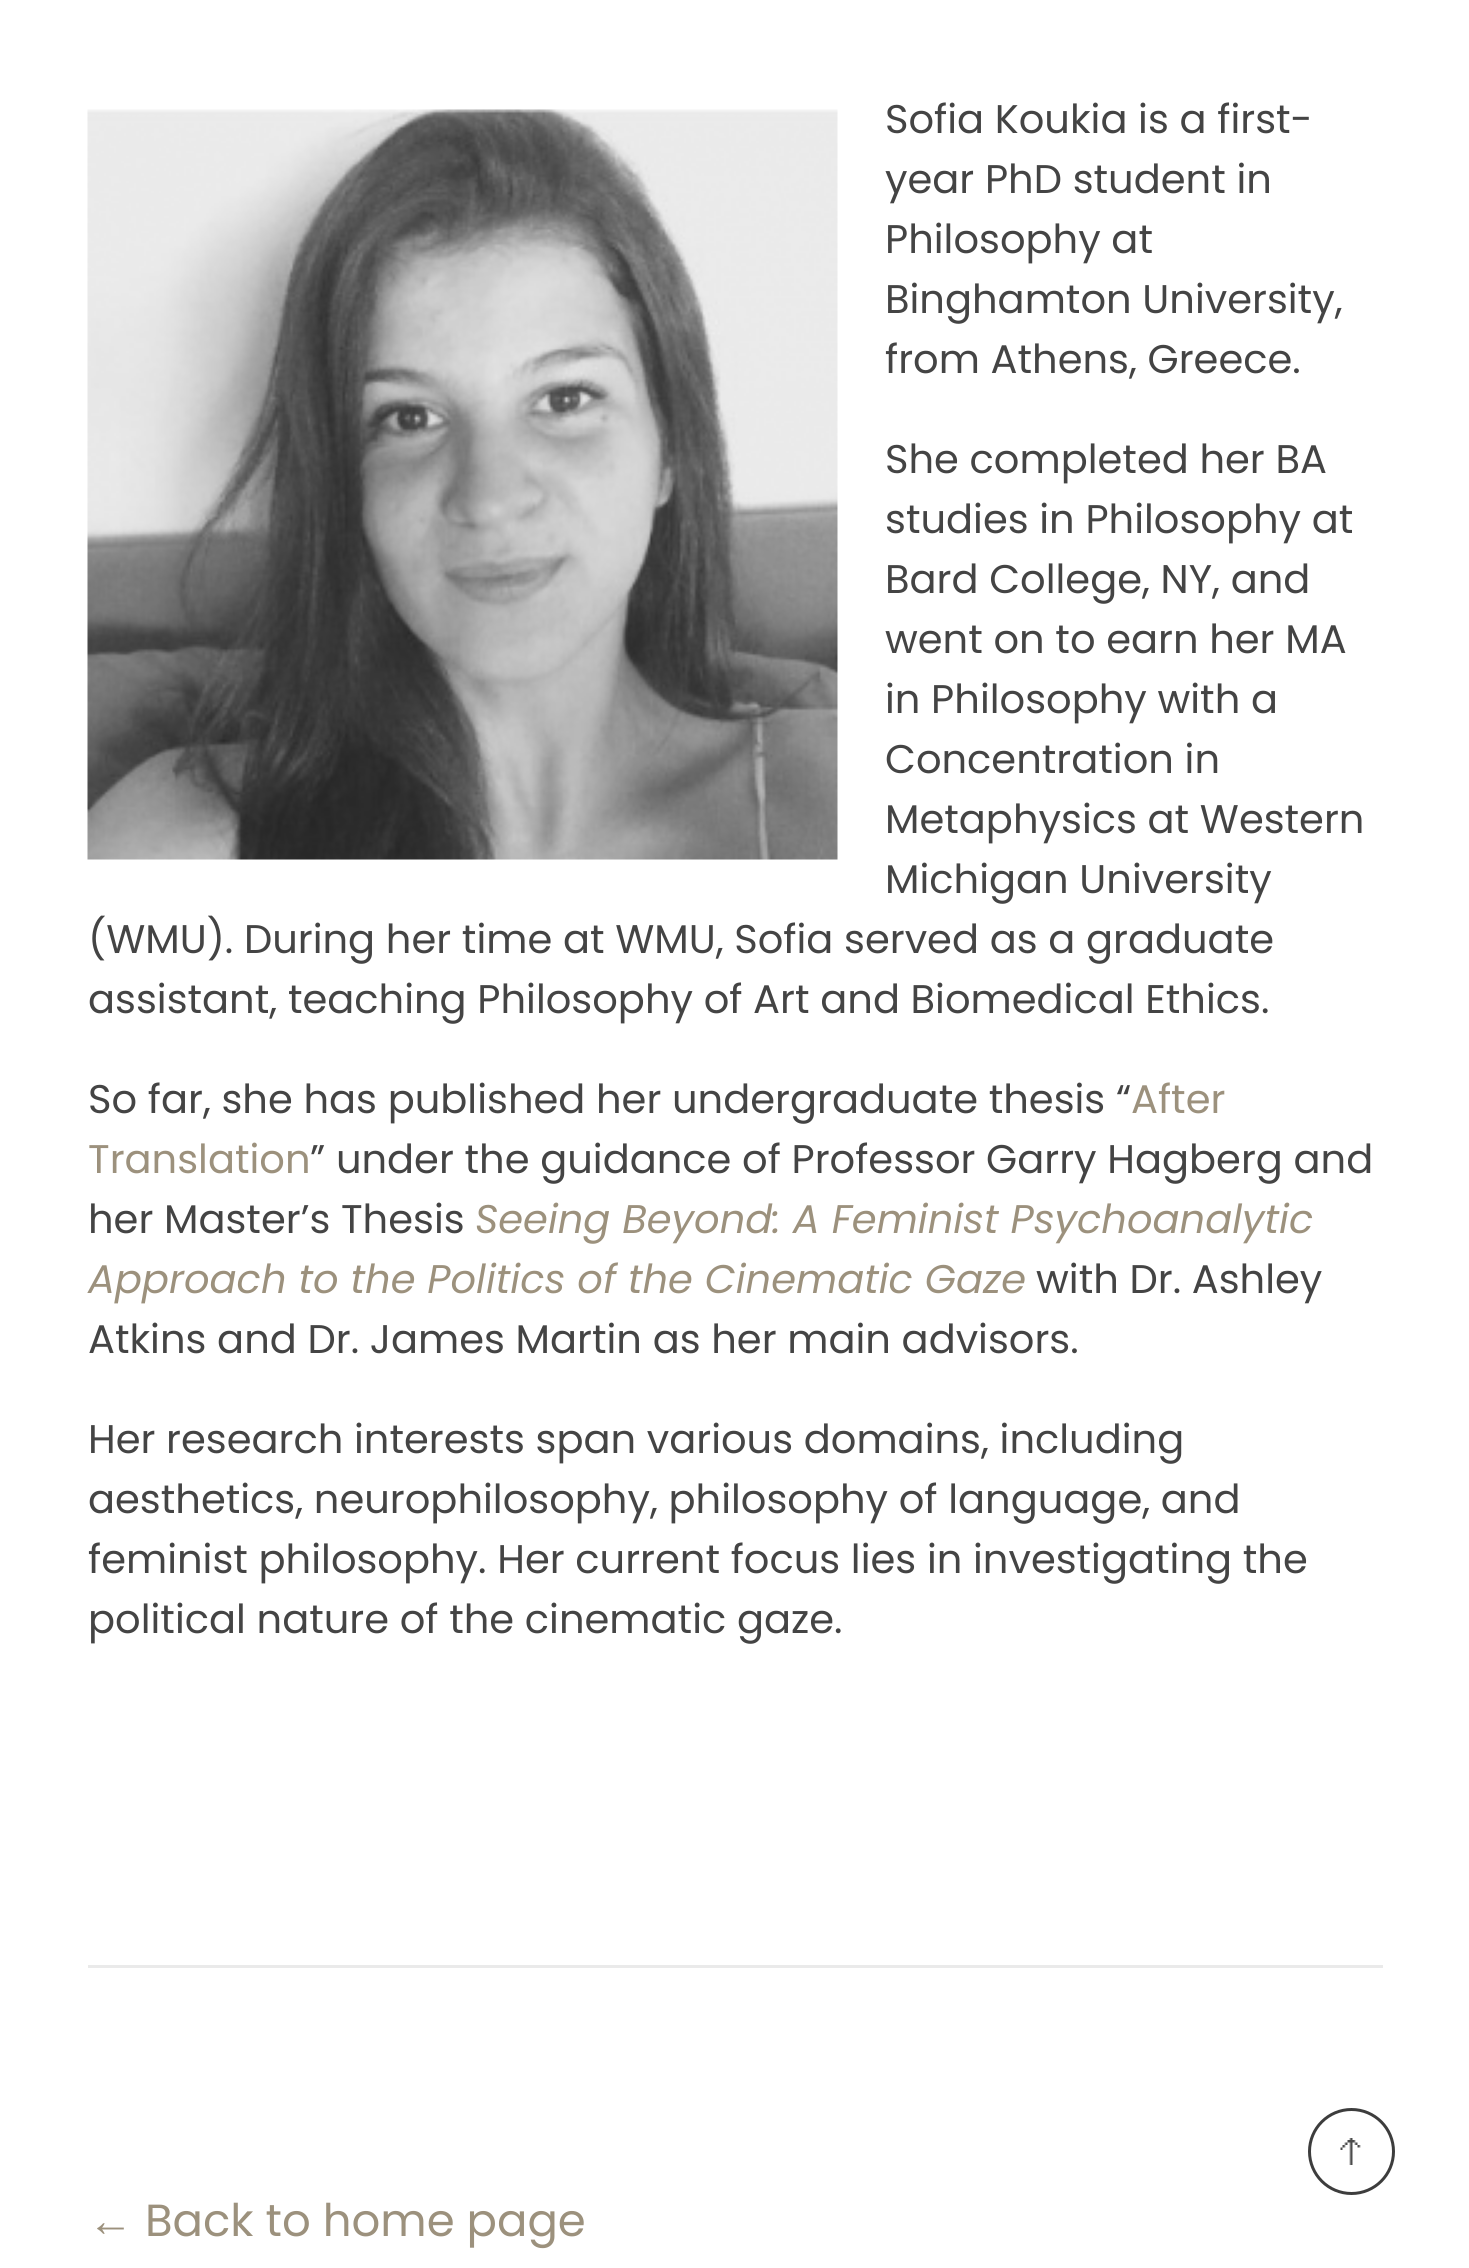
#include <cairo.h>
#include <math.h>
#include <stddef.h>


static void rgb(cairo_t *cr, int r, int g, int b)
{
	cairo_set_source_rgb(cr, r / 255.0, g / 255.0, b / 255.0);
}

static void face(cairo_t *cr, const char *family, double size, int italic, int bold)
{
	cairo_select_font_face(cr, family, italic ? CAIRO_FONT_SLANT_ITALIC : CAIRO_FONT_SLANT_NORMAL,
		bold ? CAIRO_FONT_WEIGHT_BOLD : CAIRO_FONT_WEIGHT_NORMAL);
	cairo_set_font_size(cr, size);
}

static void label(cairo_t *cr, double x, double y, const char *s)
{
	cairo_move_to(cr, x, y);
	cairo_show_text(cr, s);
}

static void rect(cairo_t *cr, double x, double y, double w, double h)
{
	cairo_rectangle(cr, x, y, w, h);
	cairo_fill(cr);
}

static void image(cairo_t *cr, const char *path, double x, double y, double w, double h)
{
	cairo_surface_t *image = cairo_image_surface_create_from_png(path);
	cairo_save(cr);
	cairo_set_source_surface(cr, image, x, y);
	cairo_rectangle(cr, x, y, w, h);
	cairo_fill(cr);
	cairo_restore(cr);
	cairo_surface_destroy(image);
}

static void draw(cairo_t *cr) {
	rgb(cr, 255, 255, 255);
	cairo_paint(cr);
	image(cr, "image0.png", 87, 109, 751, 751);
	face(cr, "Poppins", 40, 0, 0);
	rgb(cr, 68, 68, 68);
	label(cr, 885, 133, "Sofia Koukia is a first-");
	label(cr, 885, 193, "year PhD student in");
	label(cr, 885, 253, "Philosophy at");
	label(cr, 885, 313, "Binghamton University,");
	label(cr, 885, 373, "from Athens, Greece.");
	label(cr, 885, 473, "She completed her BA");
	label(cr, 885, 533, "studies in Philosophy at");
	label(cr, 885, 593, "Bard College, NY, and");
	label(cr, 885, 653, "went on to earn her MA");
	label(cr, 885, 713, "in Philosophy with a");
	label(cr, 885, 773, "Concentration in");
	label(cr, 885, 833, "Metaphysics at Western");
	label(cr, 885, 893, "Michigan University");
	label(cr, 88, 953, "(WMU). During her time at WMU, Sofia served as a graduate");
	label(cr, 88, 1013, "assistant, teaching Philosophy of Art and Biomedical Ethics.");
	label(cr, 88, 1113, "So far, she has published her undergraduate thesis “");
	rgb(cr, 156, 145, 125);
	label(cr, 1131, 1113, "After");
	label(cr, 88, 1173, "Translation");
	rgb(cr, 68, 68, 68);
	label(cr, 310, 1173, "” under the guidance of Professor Garry Hagberg and");
	label(cr, 88, 1233, "her Master’s Thesis");
	face(cr, "Poppins", 40, 1, 0);
	rgb(cr, 156, 145, 125);
	label(cr, 475, 1233, "Seeing Beyond: A Feminist Psychoanalytic");
	label(cr, 88, 1293, "Approach to the Politics of the Cinematic Gaze");
	face(cr, "Poppins", 40, 0, 0);
	rgb(cr, 68, 68, 68);
	label(cr, 1036, 1293, "with Dr. Ashley");
	label(cr, 88, 1353, "Atkins and Dr. James Martin as her main advisors.");
	label(cr, 88, 1453, "Her research interests span various domains, including");
	label(cr, 88, 1513, "aesthetics, neurophilosophy, philosophy of language, and");
	label(cr, 88, 1573, "feminist philosophy. Her current focus lies in investigating the");
	label(cr, 88, 1633, "political nature of the cinematic gaze.");
	rgb(cr, 234, 234, 234);
	rect(cr, 88, 1965, 1295, 3);
	face(cr, "Liberation Serif", 45, 0, 0);
	rgb(cr, 156, 145, 125);
	label(cr, 88, 2236, "←");
	face(cr, "Poppins", 45, 0, 0);
	label(cr, 145, 2236, "Back to home page");
	cairo_new_path(cr);
	cairo_arc(cr, 1351.5, 2151.5, 42, 0, 2 * M_PI);
	rgb(cr, 61, 61, 61);
	cairo_set_line_width(cr, 3);
	cairo_stroke(cr);
	image(cr, "image1.png", 1340, 2138, 21, 27);
}

int main(void) {
	cairo_surface_t *surface = cairo_image_surface_create(CAIRO_FORMAT_RGB24, 1469, 2268);
	cairo_t *cr = cairo_create(surface);
	cairo_font_options_t *options = cairo_font_options_create();
	cairo_font_options_set_hint_metrics(options, CAIRO_HINT_METRICS_OFF);
	cairo_font_options_set_hint_style(options, CAIRO_HINT_STYLE_NONE);
	cairo_set_font_options(cr, options);
	cairo_set_miter_limit(cr, 4);
	draw(cr);
	cairo_surface_write_to_png(surface, "render.png");
	cairo_font_options_destroy(options);
	cairo_destroy(cr);
	cairo_surface_destroy(surface);
	return 0;
}
